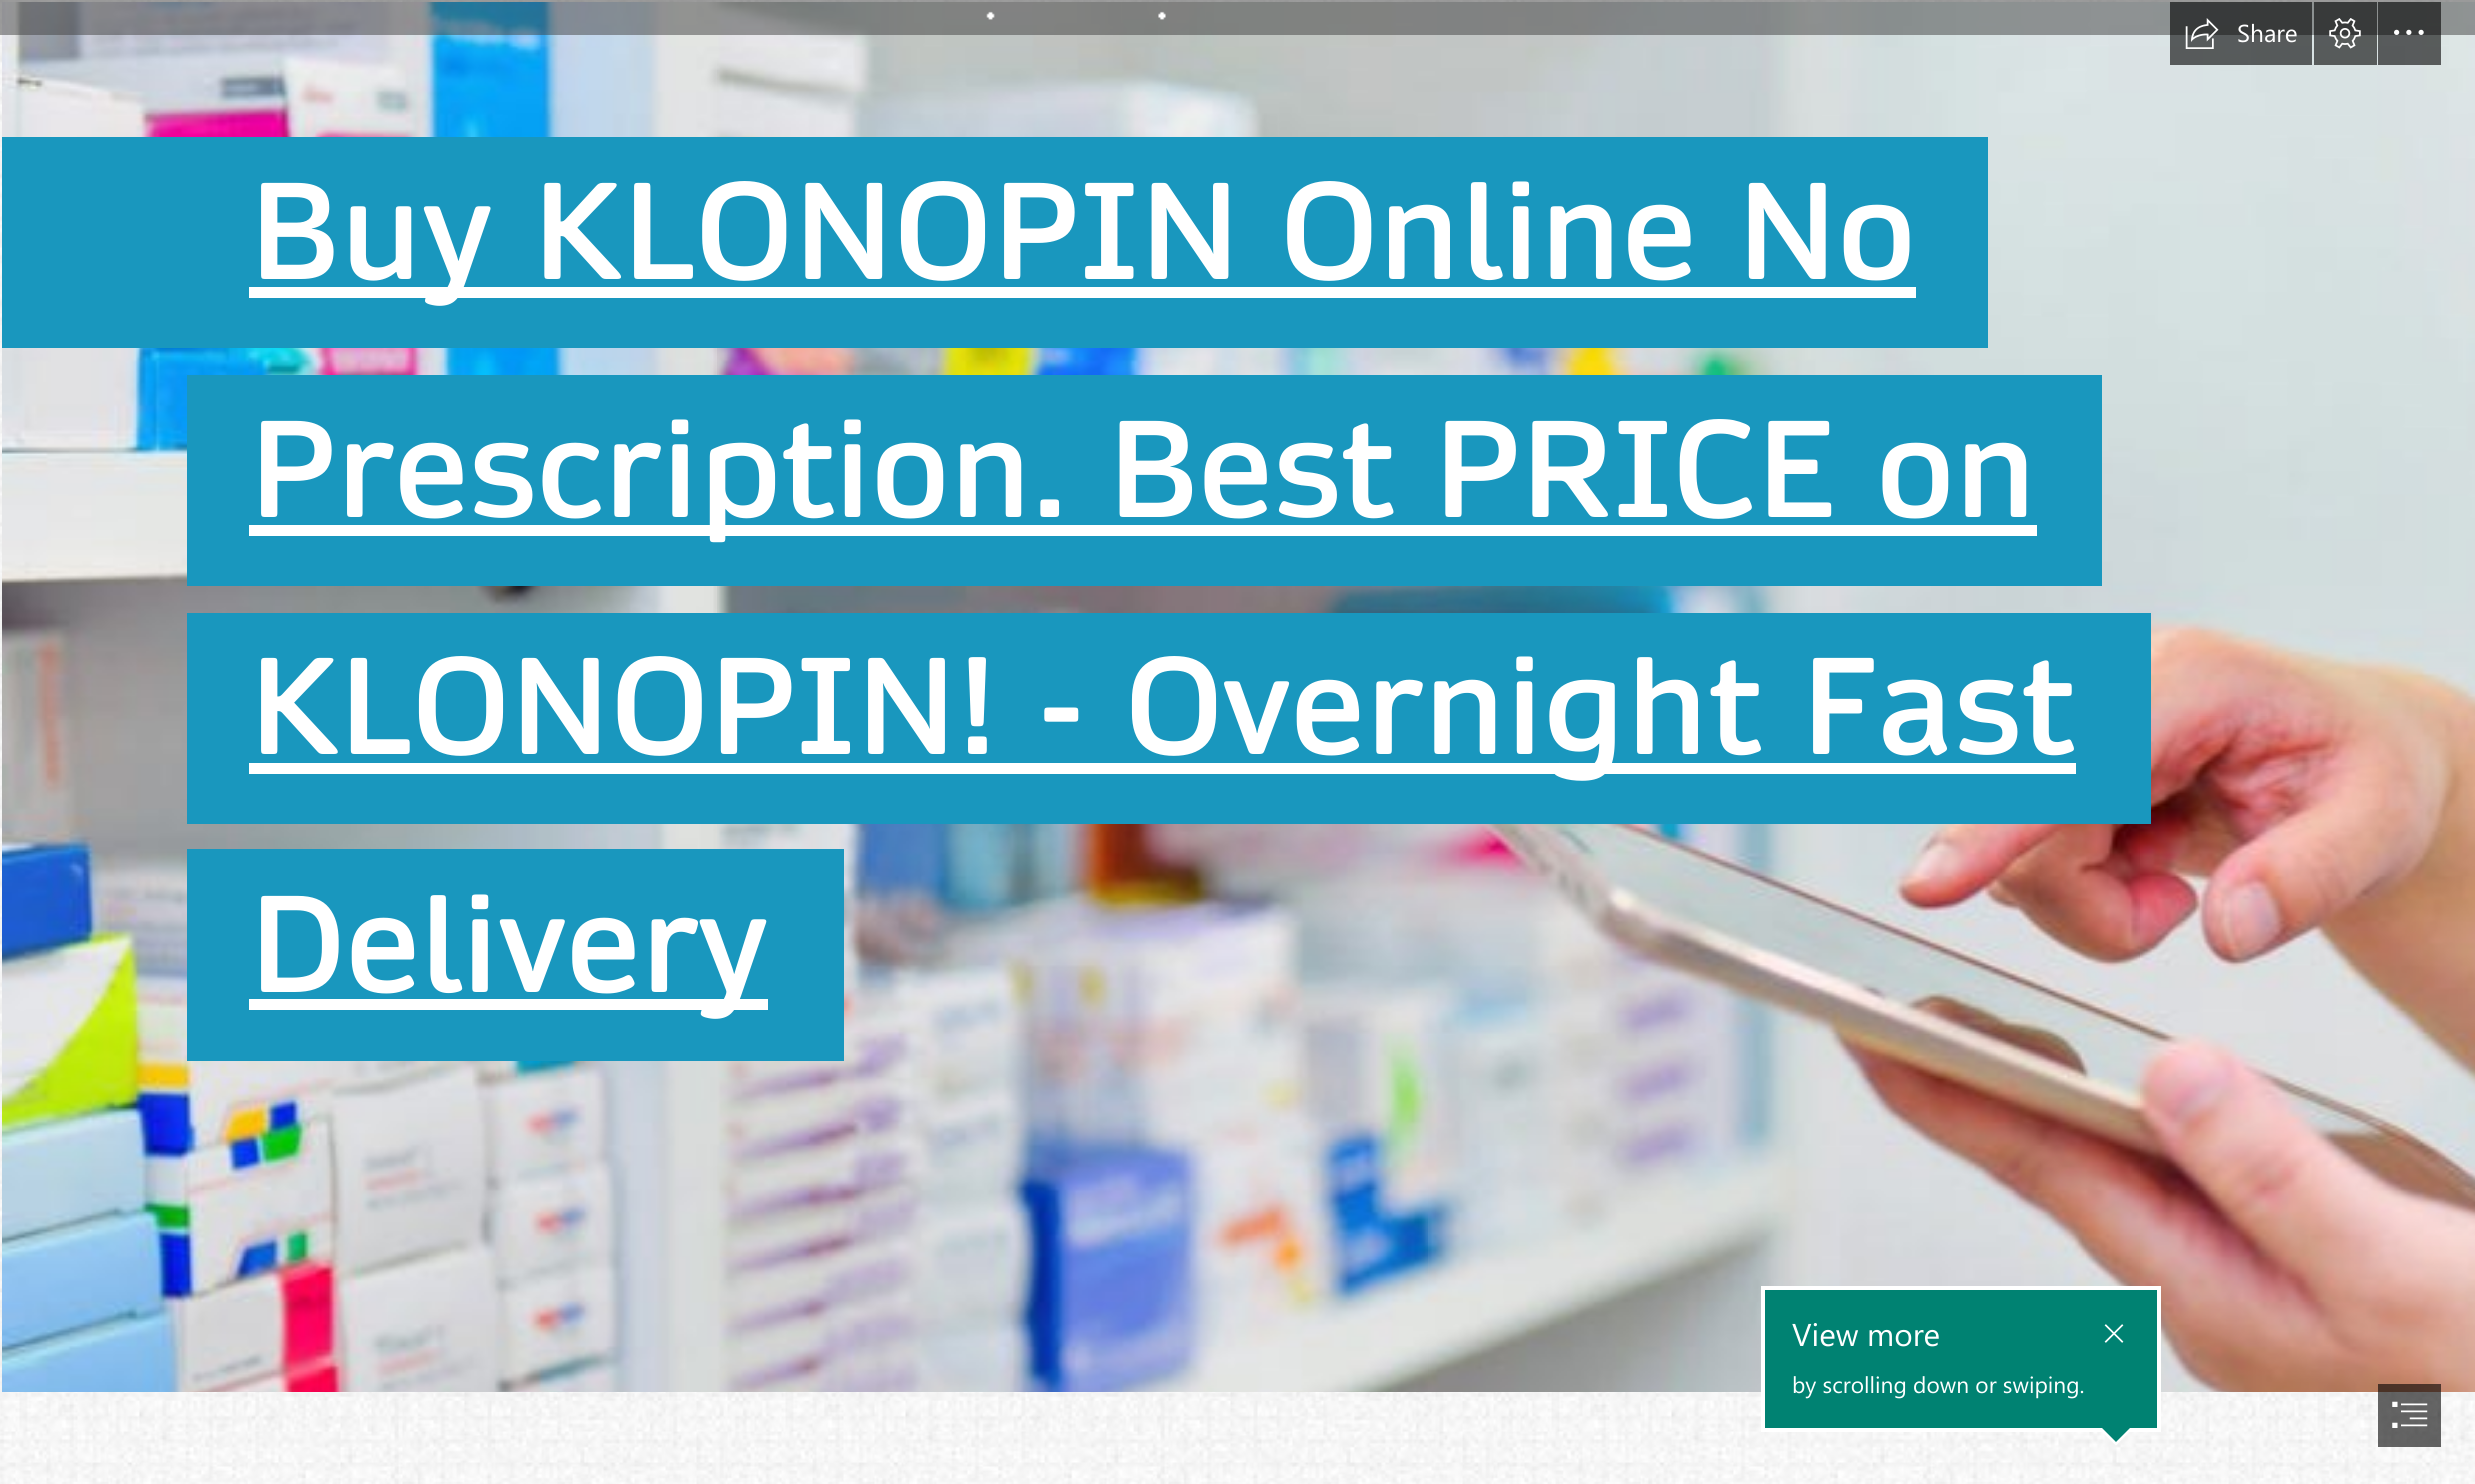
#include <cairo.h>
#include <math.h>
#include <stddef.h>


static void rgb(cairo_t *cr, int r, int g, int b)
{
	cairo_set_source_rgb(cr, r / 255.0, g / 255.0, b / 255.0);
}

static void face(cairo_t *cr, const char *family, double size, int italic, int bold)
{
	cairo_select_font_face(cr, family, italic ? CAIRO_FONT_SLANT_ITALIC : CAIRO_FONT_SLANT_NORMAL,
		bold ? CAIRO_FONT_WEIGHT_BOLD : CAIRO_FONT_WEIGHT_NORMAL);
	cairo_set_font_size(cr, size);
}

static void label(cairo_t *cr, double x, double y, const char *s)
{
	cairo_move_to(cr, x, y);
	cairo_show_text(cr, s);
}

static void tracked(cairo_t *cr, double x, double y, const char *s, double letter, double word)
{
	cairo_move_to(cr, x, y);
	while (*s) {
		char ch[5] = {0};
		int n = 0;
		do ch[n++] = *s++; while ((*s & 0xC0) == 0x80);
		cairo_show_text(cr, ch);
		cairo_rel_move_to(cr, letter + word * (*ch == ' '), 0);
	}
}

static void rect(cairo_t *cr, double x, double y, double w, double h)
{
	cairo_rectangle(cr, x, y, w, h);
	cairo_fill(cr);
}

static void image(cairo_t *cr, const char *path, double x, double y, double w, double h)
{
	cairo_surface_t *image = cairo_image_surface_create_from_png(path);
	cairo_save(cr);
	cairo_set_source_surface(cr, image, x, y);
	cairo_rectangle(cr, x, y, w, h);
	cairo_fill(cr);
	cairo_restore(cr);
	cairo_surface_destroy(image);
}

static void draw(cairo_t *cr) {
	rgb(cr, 234, 234, 234);
	cairo_paint(cr);
	image(cr, "image4.png", 0, 0, 2475, 1484);
	image(cr, "image5.png", 2, 2, 2473, 1390);
	cairo_set_source_rgba(cr, 0.251, 0.251, 0.251, 0.5);
	rect(cr, 0, 0, 2475, 35);
	cairo_set_source_rgba(cr, 0, 0, 0, 0.6);
	rect(cr, 2170, 2, 142, 63);
	image(cr, "image0.png", 2185, 18, 34, 31);
	face(cr, "Segoe UI", 24.5, 0, 0);
	rgb(cr, 255, 255, 255);
	label(cr, 2237, 42, "Share");
	cairo_set_source_rgba(cr, 0, 0, 0, 0.6);
	rect(cr, 2314, 2, 63, 63);
	image(cr, "image1.png", 2329, 18, 32, 31);
	rect(cr, 2378, 2, 63, 63);
	image(cr, "image2.png", 2394, 29, 30, 6);
	image(cr, "image3.png", 986, 11, 180, 9);
	rgb(cr, 25, 151, 190);
	rect(cr, 2, 137, 1986, 211);
	rgb(cr, 255, 255, 255);
	rect(cr, 249, 287, 1667, 11);
	face(cr, "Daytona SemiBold", 131.5, 0, 0);
	label(cr, 249, 279, "Buy KLONOPIN Online No");
	rgb(cr, 25, 151, 190);
	rect(cr, 187, 375, 1915, 211);
	rgb(cr, 255, 255, 255);
	rect(cr, 249, 525, 1788, 11);
	tracked(cr, 249, 517, "Prescription. Best PRICE on", -0.15, 0);
	rgb(cr, 25, 151, 190);
	rect(cr, 187, 613, 1964, 211);
	rgb(cr, 255, 255, 255);
	rect(cr, 249, 763, 1827, 11);
	label(cr, 249, 754, "KLONOPIN! - Overnight Fast");
	rgb(cr, 25, 151, 190);
	rect(cr, 187, 849, 657, 212);
	rgb(cr, 255, 255, 255);
	rect(cr, 249, 999, 519, 11);
	tracked(cr, 249, 992, "Delivery", -0.25, 0);
	rgb(cr, 0, 130, 114);
	cairo_rectangle(cr, 1763, 1288, 396, 142);
	cairo_fill_preserve(cr);
	rgb(cr, 255, 255, 255);
	cairo_set_line_width(cr, 4);
	cairo_stroke(cr);
	face(cr, "Segoe UI", 31.5, 0, 0);
	label(cr, 1792, 1346, "View more");
	face(cr, "Segoe UI", 22.75, 0, 0);
	label(cr, 1792, 1393, "by scrolling down or swiping.");
	image(cr, "image6.png", 2104, 1324, 20, 19);
	cairo_new_path(cr);
	cairo_move_to(cr, 2098, 1428);
	cairo_line_to(cr, 2133, 1428);
	cairo_line_to(cr, 2116, 1445.5);
	cairo_close_path(cr);
	cairo_fill(cr);
	rgb(cr, 0, 130, 114);
	cairo_new_path(cr);
	cairo_move_to(cr, 2102, 1428);
	cairo_line_to(cr, 2130, 1428);
	cairo_line_to(cr, 2116, 1442);
	cairo_close_path(cr);
	cairo_fill(cr);
	cairo_set_source_rgba(cr, 0, 0, 0, 0.6);
	rect(cr, 2378, 1384, 63, 63);
	image(cr, "image7.png", 2392, 1401, 36, 27);
}

int main(void) {
	cairo_surface_t *surface = cairo_image_surface_create(CAIRO_FORMAT_RGB24, 2475, 1484);
	cairo_t *cr = cairo_create(surface);
	cairo_font_options_t *options = cairo_font_options_create();
	cairo_font_options_set_hint_metrics(options, CAIRO_HINT_METRICS_OFF);
	cairo_font_options_set_hint_style(options, CAIRO_HINT_STYLE_NONE);
	cairo_set_font_options(cr, options);
	cairo_set_miter_limit(cr, 4);
	draw(cr);
	cairo_surface_write_to_png(surface, "render.png");
	cairo_font_options_destroy(options);
	cairo_destroy(cr);
	cairo_surface_destroy(surface);
	return 0;
}
